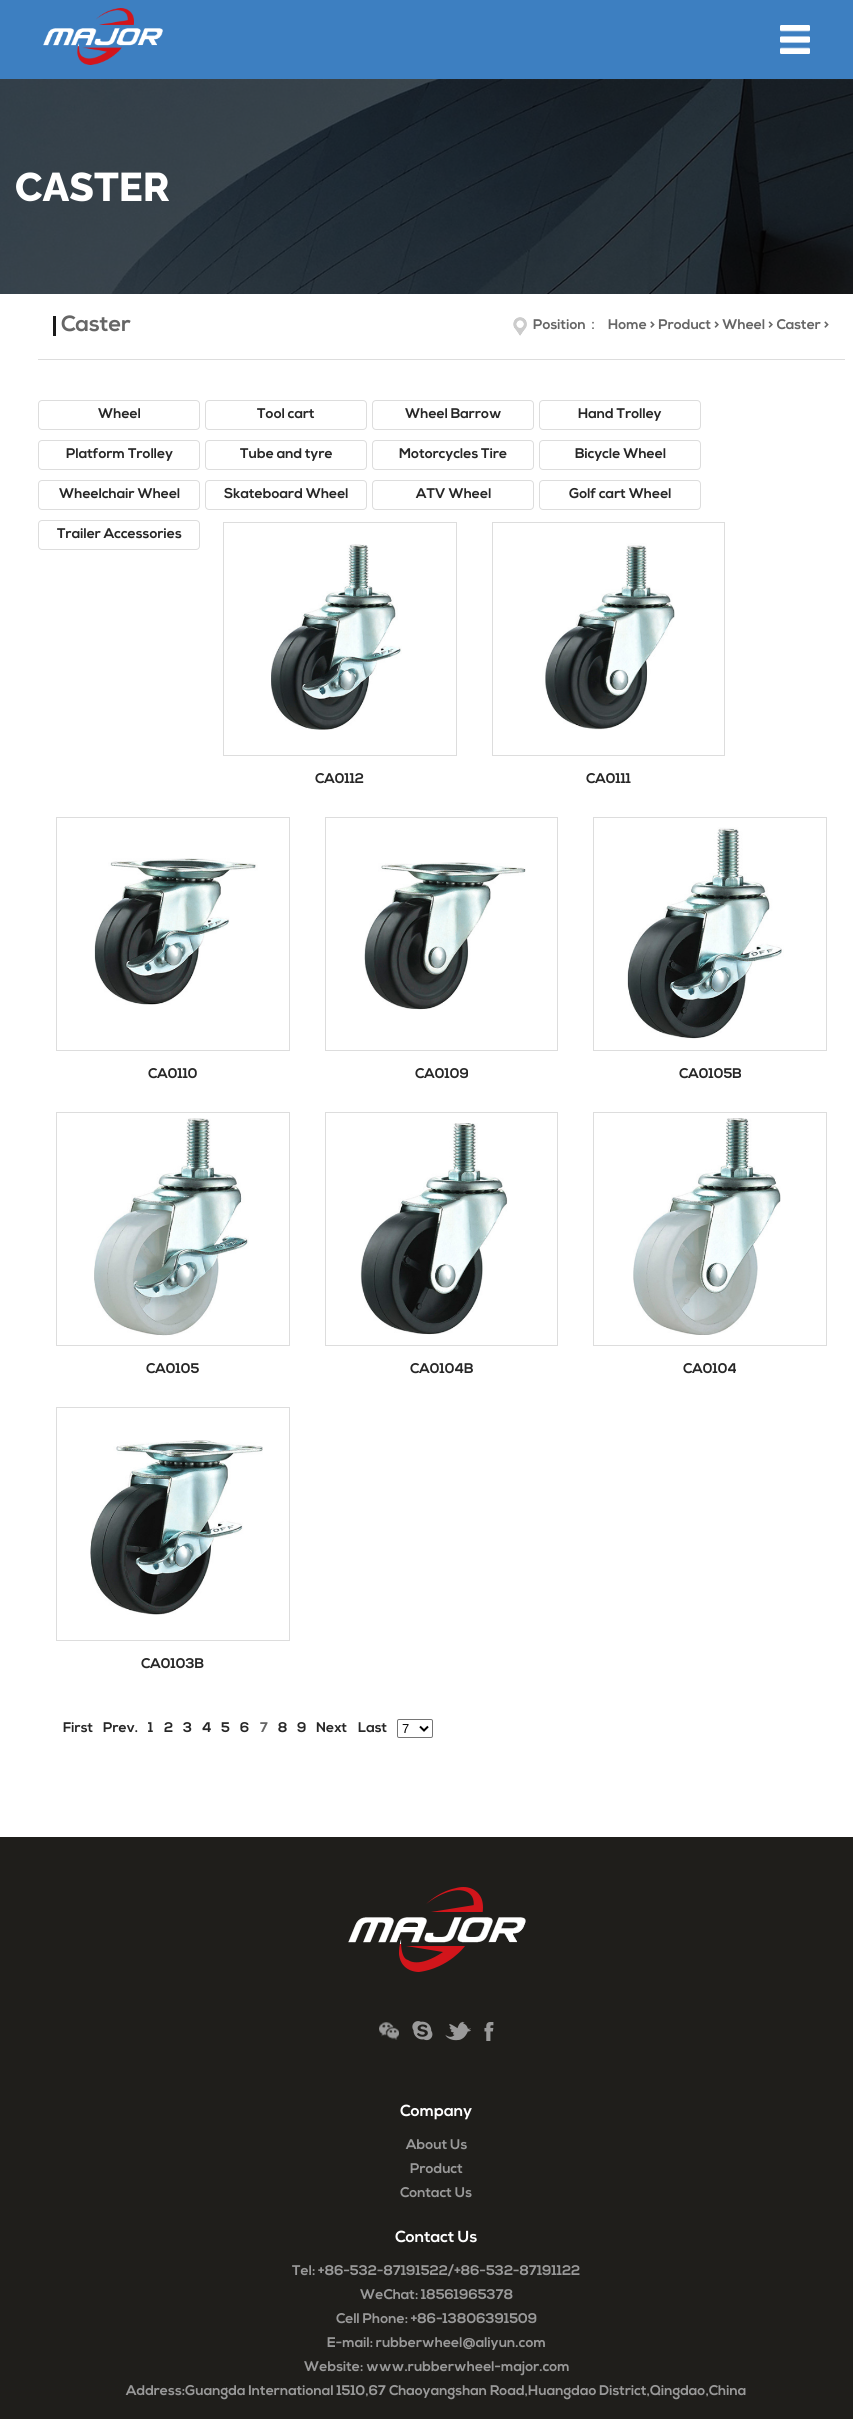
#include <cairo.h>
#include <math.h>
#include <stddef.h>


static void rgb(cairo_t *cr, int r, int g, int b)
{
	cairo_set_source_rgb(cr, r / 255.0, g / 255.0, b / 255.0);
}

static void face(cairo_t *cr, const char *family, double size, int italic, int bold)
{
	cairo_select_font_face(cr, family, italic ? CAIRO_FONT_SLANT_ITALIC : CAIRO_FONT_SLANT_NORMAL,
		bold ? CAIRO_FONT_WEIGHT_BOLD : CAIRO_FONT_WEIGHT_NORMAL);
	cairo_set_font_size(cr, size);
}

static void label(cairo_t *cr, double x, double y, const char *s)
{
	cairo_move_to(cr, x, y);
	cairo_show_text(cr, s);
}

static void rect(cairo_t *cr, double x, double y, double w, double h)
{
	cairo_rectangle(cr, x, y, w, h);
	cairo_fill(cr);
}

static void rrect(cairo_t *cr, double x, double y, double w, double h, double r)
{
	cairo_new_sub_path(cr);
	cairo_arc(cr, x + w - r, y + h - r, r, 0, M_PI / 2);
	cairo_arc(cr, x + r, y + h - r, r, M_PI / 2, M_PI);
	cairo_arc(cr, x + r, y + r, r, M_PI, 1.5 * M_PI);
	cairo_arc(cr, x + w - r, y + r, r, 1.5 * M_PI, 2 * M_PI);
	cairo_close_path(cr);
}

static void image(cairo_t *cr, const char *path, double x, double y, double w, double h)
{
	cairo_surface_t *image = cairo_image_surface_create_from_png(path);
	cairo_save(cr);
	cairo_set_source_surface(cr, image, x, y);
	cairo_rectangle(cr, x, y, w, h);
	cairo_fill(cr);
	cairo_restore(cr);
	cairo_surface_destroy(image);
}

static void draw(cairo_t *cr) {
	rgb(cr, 255, 255, 255);
	cairo_paint(cr);
	rgb(cr, 61, 127, 193);
	rect(cr, 0, 0, 853, 79);
	image(cr, "image0.png", 43, 8, 120, 57);
	image(cr, "image1.png", 780, 25, 30, 29);
	image(cr, "image2.png", 0, 79, 853, 215);
	face(cr, "Raleway ExtraBold", 40, 0, 0);
	rgb(cr, 255, 255, 255);
	label(cr, 15, 201, "CASTER");
	rgb(cr, 221, 221, 221);
	rect(cr, 38, 359, 807, 1);
	rgb(cr, 26, 26, 26);
	rect(cr, 53, 316, 3, 20);
	face(cr, "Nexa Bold", 22, 0, 1);
	rgb(cr, 102, 102, 102);
	label(cr, 61, 331, "Caster");
	image(cr, "image3.png", 513, 317, 14, 19);
	face(cr, "Nexa Bold", 14, 0, 1);
	label(cr, 533, 329, "Position");
	face(cr, "WenQuanYi Zen Hei Medium", 14, 0, 0);
	label(cr, 586, 329, "：");
	face(cr, "Nexa Bold", 14, 0, 1);
	label(cr, 608, 329, "Home > Product > Wheel > Caster >");
	rrect(cr, 38.5, 400.5, 161, 29, 3.5);
	rgb(cr, 221, 221, 221);
	cairo_set_line_width(cr, 1);
	cairo_stroke(cr);
	rgb(cr, 39, 39, 39);
	label(cr, 98, 418, "Wheel");
	rrect(cr, 205.5, 400.5, 161, 29, 3.5);
	rgb(cr, 221, 221, 221);
	cairo_stroke(cr);
	rgb(cr, 39, 39, 39);
	label(cr, 257, 418, "Tool cart");
	rrect(cr, 372.5, 400.5, 161, 29, 3.5);
	rgb(cr, 221, 221, 221);
	cairo_stroke(cr);
	rgb(cr, 39, 39, 39);
	label(cr, 405, 418, "Wheel Barrow");
	rrect(cr, 539.5, 400.5, 161, 29, 3.5);
	rgb(cr, 221, 221, 221);
	cairo_stroke(cr);
	rgb(cr, 39, 39, 39);
	label(cr, 578, 418, "Hand Trolley");
	rrect(cr, 38.5, 440.5, 161, 29, 3.5);
	rgb(cr, 221, 221, 221);
	cairo_stroke(cr);
	rgb(cr, 39, 39, 39);
	label(cr, 66, 458, "Platform Trolley");
	rrect(cr, 205.5, 440.5, 161, 29, 3.5);
	rgb(cr, 221, 221, 221);
	cairo_stroke(cr);
	rgb(cr, 39, 39, 39);
	label(cr, 240, 458, "Tube and tyre");
	rrect(cr, 372.5, 440.5, 161, 29, 3.5);
	rgb(cr, 221, 221, 221);
	cairo_stroke(cr);
	rgb(cr, 39, 39, 39);
	label(cr, 399, 458, "Motorcycles Tire");
	rrect(cr, 539.5, 440.5, 161, 29, 3.5);
	rgb(cr, 221, 221, 221);
	cairo_stroke(cr);
	rgb(cr, 39, 39, 39);
	label(cr, 575, 458, "Bicycle Wheel");
	rrect(cr, 38.5, 480.5, 161, 29, 3.5);
	rgb(cr, 221, 221, 221);
	cairo_stroke(cr);
	rgb(cr, 39, 39, 39);
	label(cr, 59, 498, "Wheelchair Wheel");
	rrect(cr, 205.5, 480.5, 161, 29, 3.5);
	rgb(cr, 221, 221, 221);
	cairo_stroke(cr);
	rgb(cr, 39, 39, 39);
	label(cr, 224, 498, "Skateboard Wheel");
	rrect(cr, 372.5, 480.5, 161, 29, 3.5);
	rgb(cr, 221, 221, 221);
	cairo_stroke(cr);
	rgb(cr, 39, 39, 39);
	label(cr, 416, 498, "ATV Wheel");
	rrect(cr, 539.5, 480.5, 161, 29, 3.5);
	rgb(cr, 221, 221, 221);
	cairo_stroke(cr);
	rgb(cr, 39, 39, 39);
	label(cr, 569, 498, "Golf cart Wheel");
	rrect(cr, 38.5, 520.5, 161, 29, 3.5);
	rgb(cr, 221, 221, 221);
	cairo_stroke(cr);
	rgb(cr, 39, 39, 39);
	label(cr, 57, 538, "Trailer Accessories");
	cairo_rectangle(cr, 223.5, 522.5, 233, 233);
	rgb(cr, 221, 221, 221);
	cairo_stroke(cr);
	image(cr, "image4.png", 271, 544, 131, 186);
	rgb(cr, 39, 39, 39);
	label(cr, 315, 783, "CA0112");
	cairo_rectangle(cr, 492.5, 522.5, 232, 233);
	rgb(cr, 221, 221, 221);
	cairo_stroke(cr);
	image(cr, "image5.png", 542, 543, 133, 187);
	rgb(cr, 39, 39, 39);
	label(cr, 586, 783, "CA0111");
	cairo_rectangle(cr, 56.5, 817.5, 233, 233);
	rgb(cr, 221, 221, 221);
	cairo_stroke(cr);
	image(cr, "image6.png", 94, 858, 164, 147);
	rgb(cr, 39, 39, 39);
	label(cr, 148, 1078, "CA0110");
	cairo_rectangle(cr, 325.5, 817.5, 232, 233);
	rgb(cr, 221, 221, 221);
	cairo_stroke(cr);
	image(cr, "image7.png", 364, 862, 162, 148);
	rgb(cr, 39, 39, 39);
	label(cr, 415, 1078, "CA0109");
	cairo_rectangle(cr, 593.5, 817.5, 233, 233);
	rgb(cr, 221, 221, 221);
	cairo_stroke(cr);
	image(cr, "image8.png", 627, 827, 157, 212);
	rgb(cr, 39, 39, 39);
	label(cr, 679, 1078, "CA0105B");
	cairo_rectangle(cr, 56.5, 1112.5, 233, 233);
	rgb(cr, 221, 221, 221);
	cairo_stroke(cr);
	image(cr, "image9.png", 94, 1118, 155, 218);
	rgb(cr, 39, 39, 39);
	label(cr, 146, 1373, "CA0105");
	cairo_rectangle(cr, 325.5, 1112.5, 232, 233);
	rgb(cr, 221, 221, 221);
	cairo_stroke(cr);
	image(cr, "image10.png", 360, 1123, 148, 212);
	rgb(cr, 39, 39, 39);
	label(cr, 410, 1373, "CA0104B");
	cairo_rectangle(cr, 593.5, 1112.5, 233, 233);
	rgb(cr, 221, 221, 221);
	cairo_stroke(cr);
	image(cr, "image11.png", 633, 1118, 148, 217);
	rgb(cr, 39, 39, 39);
	label(cr, 683, 1373, "CA0104");
	cairo_rectangle(cr, 56.5, 1407.5, 233, 233);
	rgb(cr, 221, 221, 221);
	cairo_stroke(cr);
	image(cr, "image12.png", 90, 1440, 173, 175);
	rgb(cr, 39, 39, 39);
	label(cr, 141, 1668, "CA0103B");
	label(cr, 63, 1732, "First");
	label(cr, 103, 1732, "Prev.");
	label(cr, 148, 1732, "1");
	label(cr, 164, 1732, "2");
	label(cr, 183, 1732, "3");
	label(cr, 202, 1732, "4");
	label(cr, 221, 1732, "5");
	label(cr, 240, 1732, "6");
	rgb(cr, 102, 102, 102);
	label(cr, 260, 1732, "7");
	rgb(cr, 39, 39, 39);
	label(cr, 278, 1732, "8");
	label(cr, 297, 1732, "9");
	label(cr, 316, 1732, "Next");
	label(cr, 358, 1732, "Last");
	rrect(cr, 397.5, 1719.5, 35, 18, 1.5);
	rgb(cr, 118, 118, 118);
	cairo_stroke(cr);
	cairo_new_path(cr);
	cairo_move_to(cr, 420, 1726.5);
	cairo_line_to(cr, 424, 1730.5);
	cairo_line_to(cr, 428, 1726.5);
	rgb(cr, 0, 0, 0);
	cairo_set_line_width(cr, 2);
	cairo_stroke(cr);
	face(cr, "Liberation Sans", 13, 0, 0);
	label(cr, 402, 1733, "7");
	rgb(cr, 31, 30, 27);
	rect(cr, 0, 1837, 853, 582);
	image(cr, "image13.png", 348, 1887, 178, 85);
	image(cr, "image14.png", 379, 2022, 20, 18);
	image(cr, "image15.png", 412, 2021, 21, 20);
	image(cr, "image16.png", 445, 2021, 26, 20);
	image(cr, "image17.png", 484, 2022, 10, 19);
	face(cr, "Nexa Bold", 16, 0, 1);
	rgb(cr, 255, 255, 255);
	label(cr, 400, 2116, "Company");
	face(cr, "Nexa Bold", 14, 0, 1);
	rgb(cr, 153, 153, 153);
	label(cr, 406, 2149, "About Us");
	label(cr, 410, 2173, "Product");
	label(cr, 400, 2197, "Contact Us");
	face(cr, "Nexa Bold", 16, 0, 1);
	rgb(cr, 255, 255, 255);
	label(cr, 395, 2242, "Contact Us");
	face(cr, "Nexa Bold", 14, 0, 1);
	rgb(cr, 153, 153, 153);
	label(cr, 292, 2275, "Tel: +86-532-87191522/+86-532-87191122");
	label(cr, 360, 2299, "WeChat: 18561965378");
	label(cr, 336, 2323, "Cell Phone: +86-13806391509");
	label(cr, 327, 2347, "E-mail: rubberwheel@aliyun.com");
	label(cr, 304, 2371, "Website: www.rubberwheel-major.com");
	label(cr, 126, 2395, "Address:Guangda International 1510,67 Chaoyangshan Road,Huangdao District,Qingdao,China");
}

int main(void) {
	cairo_surface_t *surface = cairo_image_surface_create(CAIRO_FORMAT_RGB24, 853, 2419);
	cairo_t *cr = cairo_create(surface);
	cairo_font_options_t *options = cairo_font_options_create();
	cairo_font_options_set_hint_metrics(options, CAIRO_HINT_METRICS_OFF);
	cairo_font_options_set_hint_style(options, CAIRO_HINT_STYLE_NONE);
	cairo_set_font_options(cr, options);
	cairo_set_miter_limit(cr, 4);
	draw(cr);
	cairo_surface_write_to_png(surface, "render.png");
	cairo_font_options_destroy(options);
	cairo_destroy(cr);
	cairo_surface_destroy(surface);
	return 0;
}
